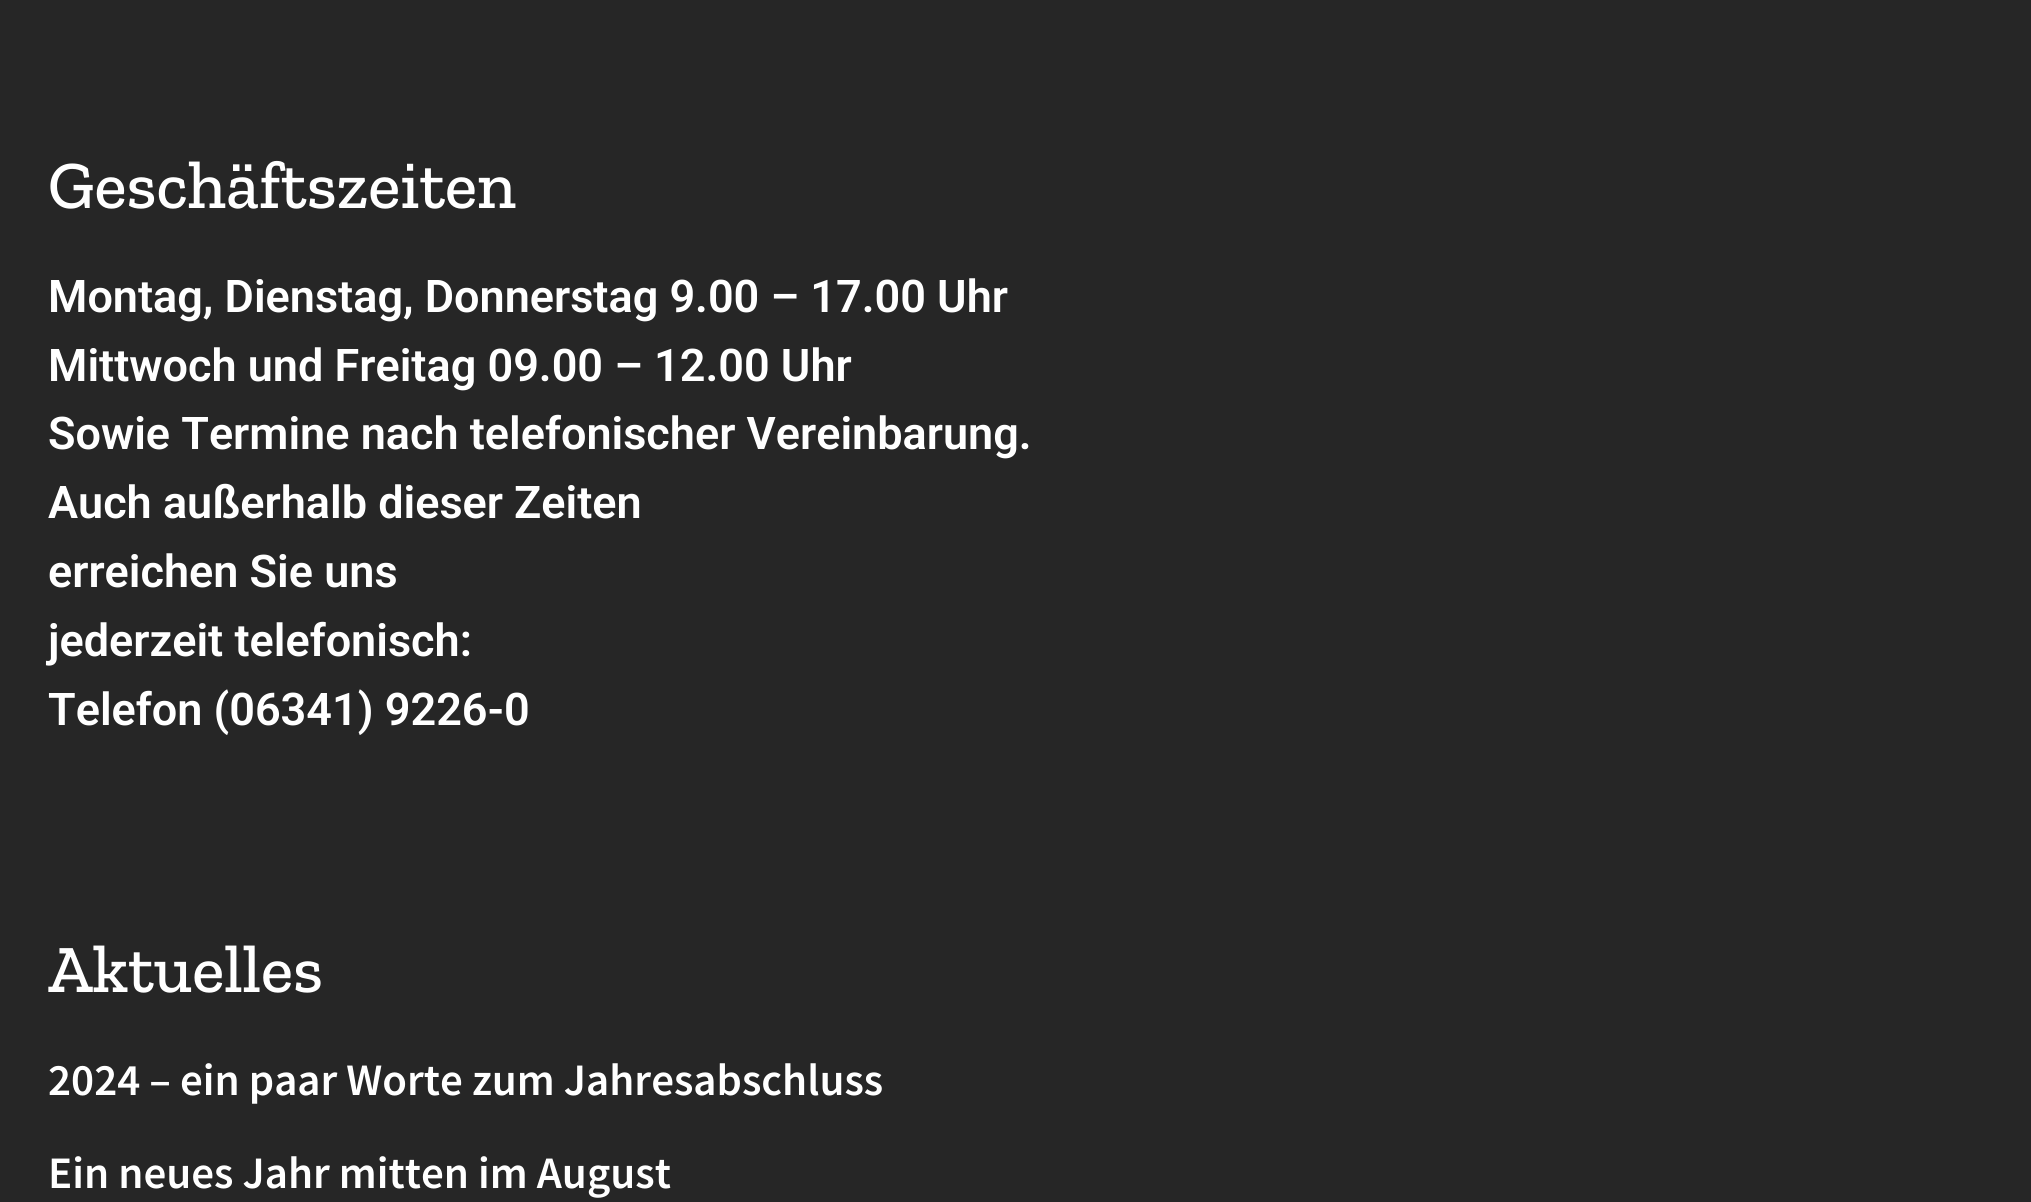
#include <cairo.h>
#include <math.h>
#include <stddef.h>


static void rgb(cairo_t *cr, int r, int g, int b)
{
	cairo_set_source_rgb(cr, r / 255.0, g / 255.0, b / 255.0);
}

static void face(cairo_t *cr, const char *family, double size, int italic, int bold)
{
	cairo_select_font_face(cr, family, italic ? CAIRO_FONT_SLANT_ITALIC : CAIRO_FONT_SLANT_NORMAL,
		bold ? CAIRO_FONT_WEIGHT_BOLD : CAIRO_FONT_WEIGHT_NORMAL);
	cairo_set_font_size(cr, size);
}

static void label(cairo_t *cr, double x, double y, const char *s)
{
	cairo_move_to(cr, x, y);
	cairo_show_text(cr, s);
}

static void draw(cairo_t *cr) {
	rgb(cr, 38, 38, 38);
	cairo_paint(cr);
	face(cr, "Zilla Slab Medium", 67.5, 0, 0);
	rgb(cr, 255, 255, 255);
	label(cr, 48, 208, "Geschäftszeiten");
	face(cr, "Roboto SemiBold", 45, 0, 0);
	label(cr, 48, 312, "Montag, Dienstag, Donnerstag 9.00 – 17.00 Uhr");
	label(cr, 48, 381, "Mittwoch und Freitag 09.00 – 12.00 Uhr");
	label(cr, 48, 449, "Sowie Termine nach telefonischer Vereinbarung.");
	label(cr, 48, 518, "Auch außerhalb dieser Zeiten");
	label(cr, 48, 587, "erreichen Sie uns");
	label(cr, 48, 656, "jederzeit telefonisch:");
	label(cr, 48, 725, "Telefon (06341) 9226-0");
	face(cr, "Zilla Slab Medium", 67.5, 0, 0);
	label(cr, 48, 992, "Aktuelles");
	face(cr, "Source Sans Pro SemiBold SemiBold", 45, 0, 0);
	label(cr, 48, 1095, "2024 – ein paar Worte zum Jahresabschluss");
	label(cr, 48, 1188, "Ein neues Jahr mitten im August");
}

int main(void) {
	cairo_surface_t *surface = cairo_image_surface_create(CAIRO_FORMAT_RGB24, 2031, 1202);
	cairo_t *cr = cairo_create(surface);
	cairo_font_options_t *options = cairo_font_options_create();
	cairo_font_options_set_hint_metrics(options, CAIRO_HINT_METRICS_OFF);
	cairo_font_options_set_hint_style(options, CAIRO_HINT_STYLE_NONE);
	cairo_set_font_options(cr, options);
	cairo_set_miter_limit(cr, 4);
	draw(cr);
	cairo_surface_write_to_png(surface, "render.png");
	cairo_font_options_destroy(options);
	cairo_destroy(cr);
	cairo_surface_destroy(surface);
	return 0;
}
